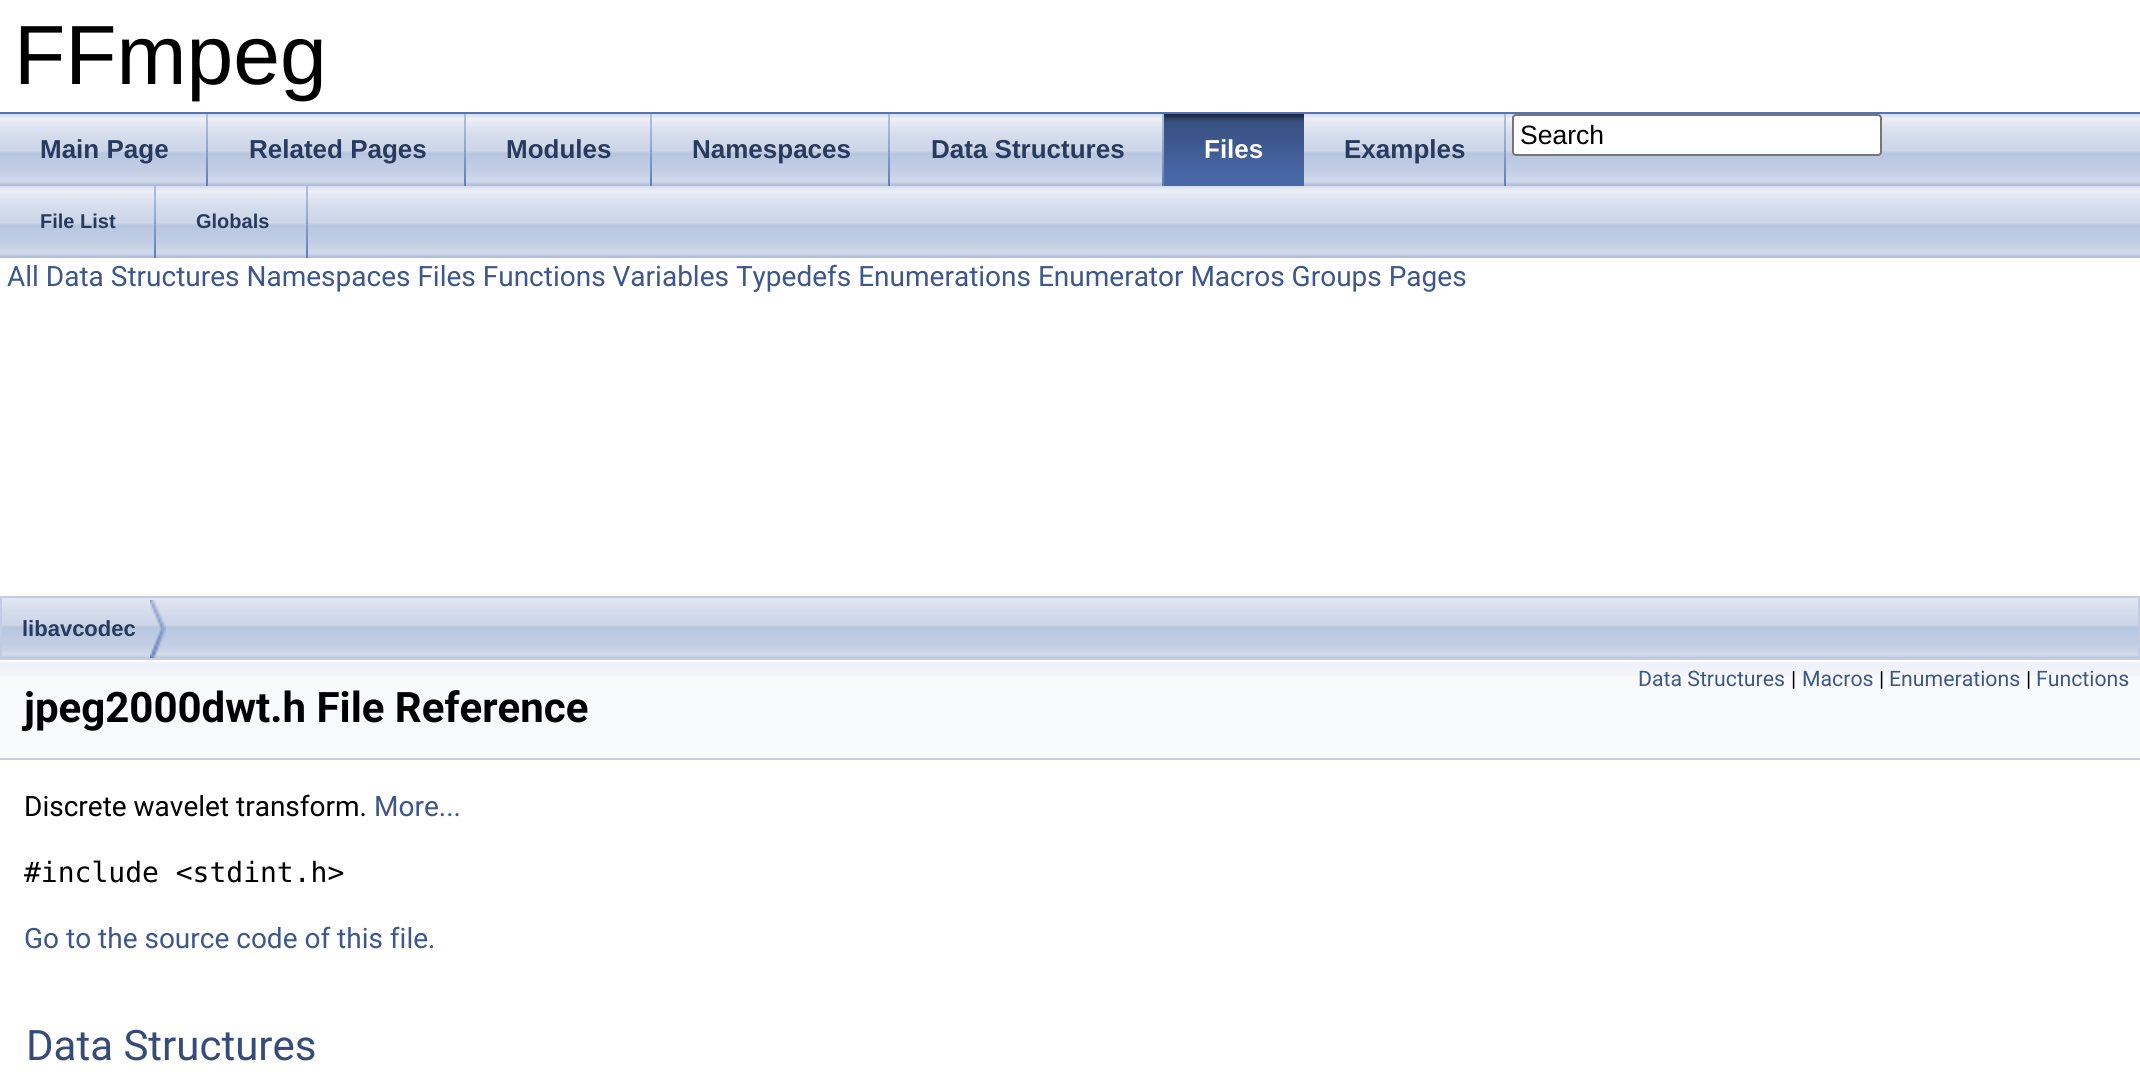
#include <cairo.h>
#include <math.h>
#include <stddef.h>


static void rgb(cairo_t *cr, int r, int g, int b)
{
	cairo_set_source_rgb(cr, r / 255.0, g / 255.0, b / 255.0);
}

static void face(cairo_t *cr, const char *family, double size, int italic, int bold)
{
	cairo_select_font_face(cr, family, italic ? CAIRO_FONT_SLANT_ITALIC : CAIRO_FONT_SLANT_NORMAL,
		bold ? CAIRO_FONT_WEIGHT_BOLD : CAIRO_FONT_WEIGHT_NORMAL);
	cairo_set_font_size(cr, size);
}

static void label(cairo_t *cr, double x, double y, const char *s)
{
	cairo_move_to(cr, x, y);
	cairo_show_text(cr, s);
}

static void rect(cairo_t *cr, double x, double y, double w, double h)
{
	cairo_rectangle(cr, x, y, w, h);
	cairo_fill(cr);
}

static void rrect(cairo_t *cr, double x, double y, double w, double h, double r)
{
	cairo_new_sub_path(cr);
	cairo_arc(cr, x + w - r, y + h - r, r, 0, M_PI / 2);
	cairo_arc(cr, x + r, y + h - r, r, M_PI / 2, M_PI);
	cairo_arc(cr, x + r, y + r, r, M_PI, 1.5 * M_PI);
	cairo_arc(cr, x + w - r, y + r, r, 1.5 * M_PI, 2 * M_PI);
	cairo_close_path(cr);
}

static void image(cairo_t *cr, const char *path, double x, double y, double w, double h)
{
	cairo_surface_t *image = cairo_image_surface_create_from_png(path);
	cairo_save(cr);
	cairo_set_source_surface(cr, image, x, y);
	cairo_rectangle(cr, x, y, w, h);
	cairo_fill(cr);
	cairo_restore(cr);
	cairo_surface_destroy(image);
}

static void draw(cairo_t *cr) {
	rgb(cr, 255, 255, 255);
	cairo_paint(cr);
	rgb(cr, 83, 115, 180);
	rect(cr, 0, 112, 2140, 2);
	face(cr, "Liberation Sans", 84, 0, 0);
	rgb(cr, 0, 0, 0);
	label(cr, 14, 84, "FFmpeg");
	image(cr, "image0.png", 0, 114, 2140, 72);
	rgb(cr, 255, 255, 255);
	rrect(cr, 1513, 115, 368, 40, 3);
	cairo_fill_preserve(cr);
	rgb(cr, 118, 118, 118);
	cairo_stroke(cr);
	face(cr, "Liberation Sans", 26.5, 0, 0);
	rgb(cr, 0, 0, 0);
	label(cr, 1520, 144, "Search");
	image(cr, "image1.png", 206, 114, 2, 72);
	face(cr, "Liberation Sans", 26, 0, 1);
	rgb(cr, 40, 58, 93);
	label(cr, 40, 158, "Main Page");
	image(cr, "image1.png", 464, 114, 2, 72);
	label(cr, 249, 158, "Related Pages");
	image(cr, "image1.png", 650, 114, 2, 72);
	label(cr, 506, 158, "Modules");
	image(cr, "image1.png", 888, 114, 2, 72);
	label(cr, 692, 158, "Namespaces");
	image(cr, "image1.png", 1162, 114, 2, 72);
	label(cr, 931, 158, "Data Structures");
	image(cr, "image2.png", 1164, 114, 140, 72);
	rgb(cr, 255, 255, 255);
	label(cr, 1204, 158, "Files");
	image(cr, "image1.png", 1504, 114, 2, 72);
	rgb(cr, 40, 58, 93);
	label(cr, 1344, 158, "Examples");
	image(cr, "image0.png", 0, 186, 2140, 72);
	image(cr, "image1.png", 154, 186, 2, 72);
	face(cr, "Liberation Sans", 20, 0, 1);
	label(cr, 40, 228, "File List");
	image(cr, "image1.png", 306, 186, 2, 72);
	label(cr, 196, 228, "Globals");
	face(cr, "Roboto", 28, 0, 0);
	rgb(cr, 61, 87, 140);
	label(cr, 7, 286, "All Data Structures Namespaces Files Functions Variables Typedefs Enumerations Enumerator Macros Groups Pages");
	image(cr, "image3.png", 2, 598, 2136, 60);
	cairo_rectangle(cr, 1, 597, 2138, 62);
	rgb(cr, 194, 205, 228);
	cairo_stroke(cr);
	image(cr, "image4.png", 150, 600, 16, 58);
	face(cr, "Liberation Sans", 22, 0, 1);
	rgb(cr, 40, 58, 93);
	label(cr, 22, 636, "libavcodec");
	rgb(cr, 249, 250, 252);
	rect(cr, 0, 676, 2140, 82);
	image(cr, "image5.png", 0, 660, 2140, 16);
	rgb(cr, 196, 207, 229);
	rect(cr, 0, 758, 2140, 2);
	face(cr, "Roboto", 21.25, 0, 0);
	rgb(cr, 61, 87, 140);
	label(cr, 1638, 686, "Data Structures");
	rgb(cr, 0, 0, 0);
	label(cr, 1791, 686, "|");
	rgb(cr, 61, 87, 140);
	label(cr, 1802, 686, "Macros");
	rgb(cr, 0, 0, 0);
	label(cr, 1879, 686, "|");
	rgb(cr, 61, 87, 140);
	label(cr, 1889, 686, "Enumerations");
	rgb(cr, 0, 0, 0);
	label(cr, 2026, 686, "|");
	rgb(cr, 61, 87, 140);
	label(cr, 2036, 686, "Functions");
	face(cr, "Roboto", 42, 0, 1);
	rgb(cr, 0, 0, 0);
	label(cr, 24, 722, "jpeg2000dwt.h File Reference");
	face(cr, "Roboto", 28, 0, 0);
	label(cr, 24, 816, "Discrete wavelet transform.");
	rgb(cr, 61, 87, 140);
	label(cr, 374, 816, "More...");
	face(cr, "DejaVu Sans Mono", 28, 0, 0);
	rgb(cr, 0, 0, 0);
	label(cr, 24, 882, "#include <stdint.h>");
	face(cr, "Roboto", 28, 0, 0);
	rgb(cr, 61, 87, 140);
	label(cr, 24, 948, "Go to the source code of this file.");
	face(cr, "Roboto", 42, 0, 0);
	rgb(cr, 53, 76, 123);
	label(cr, 26, 1060, "Data Structures");
}

int main(void) {
	cairo_surface_t *surface = cairo_image_surface_create(CAIRO_FORMAT_RGB24, 2140, 1072);
	cairo_t *cr = cairo_create(surface);
	cairo_font_options_t *options = cairo_font_options_create();
	cairo_font_options_set_hint_metrics(options, CAIRO_HINT_METRICS_OFF);
	cairo_font_options_set_hint_style(options, CAIRO_HINT_STYLE_NONE);
	cairo_set_font_options(cr, options);
	cairo_set_miter_limit(cr, 4);
	draw(cr);
	cairo_surface_write_to_png(surface, "render.png");
	cairo_font_options_destroy(options);
	cairo_destroy(cr);
	cairo_surface_destroy(surface);
	return 0;
}
